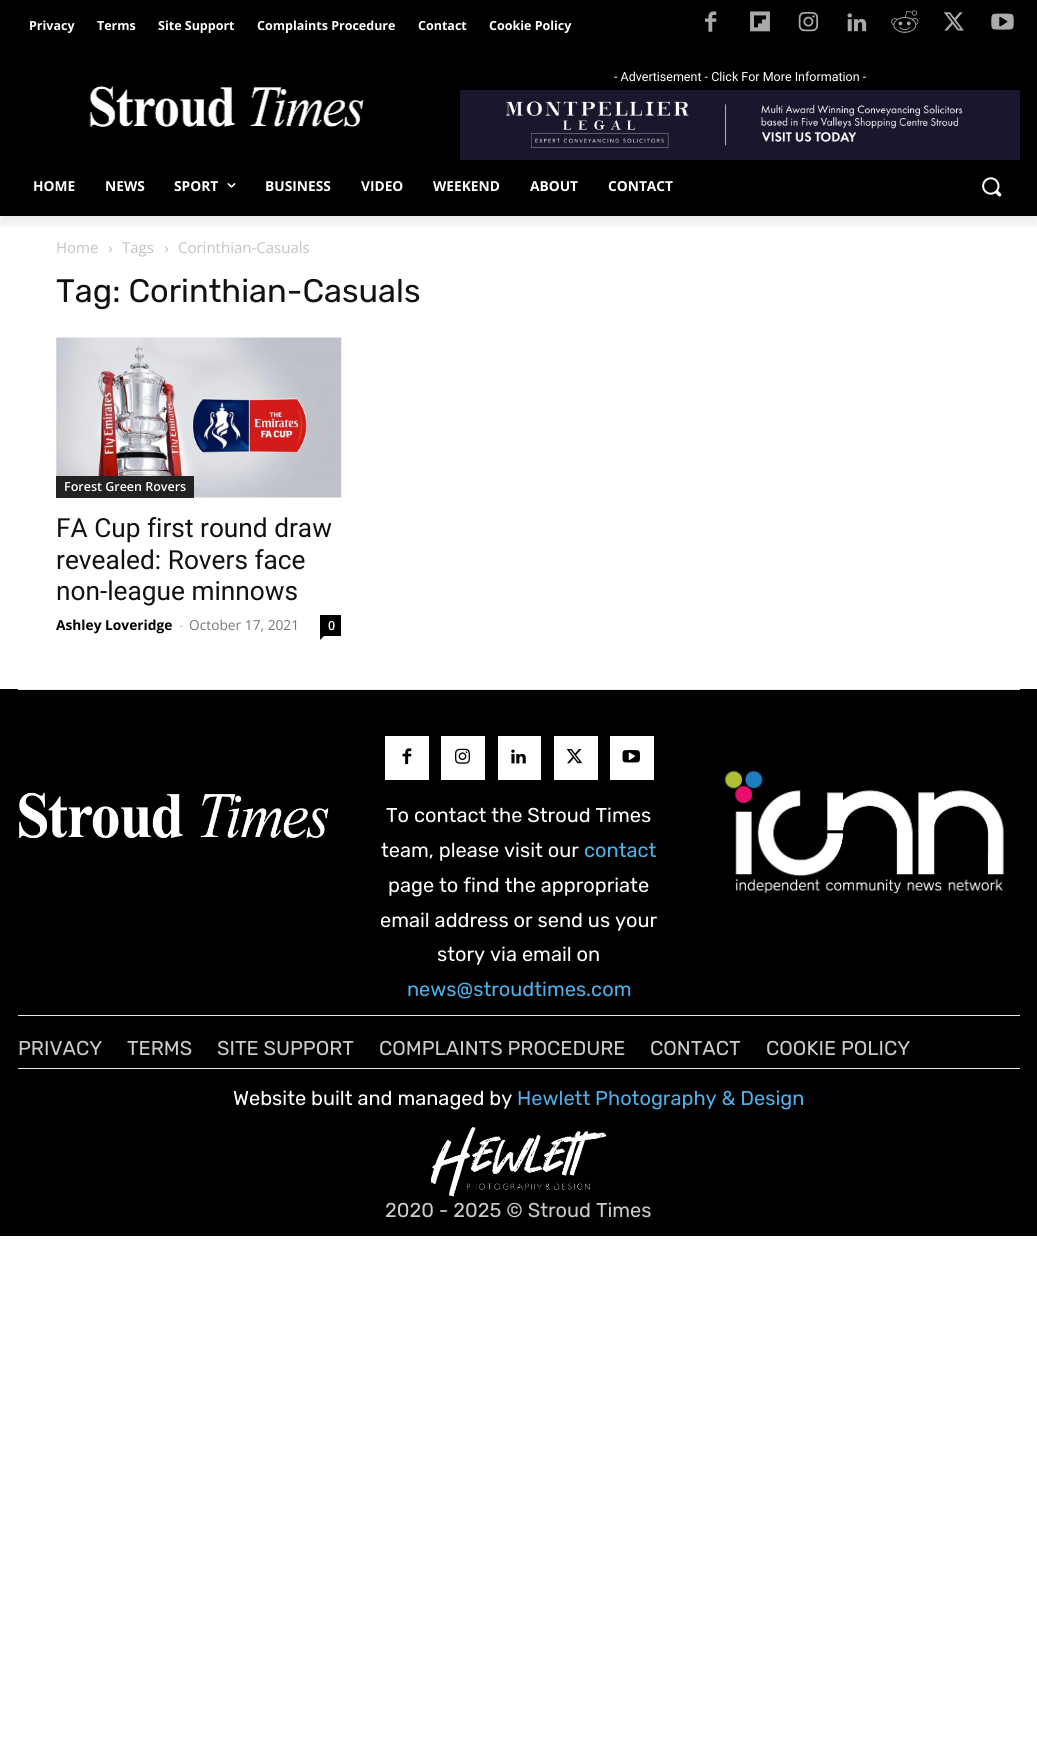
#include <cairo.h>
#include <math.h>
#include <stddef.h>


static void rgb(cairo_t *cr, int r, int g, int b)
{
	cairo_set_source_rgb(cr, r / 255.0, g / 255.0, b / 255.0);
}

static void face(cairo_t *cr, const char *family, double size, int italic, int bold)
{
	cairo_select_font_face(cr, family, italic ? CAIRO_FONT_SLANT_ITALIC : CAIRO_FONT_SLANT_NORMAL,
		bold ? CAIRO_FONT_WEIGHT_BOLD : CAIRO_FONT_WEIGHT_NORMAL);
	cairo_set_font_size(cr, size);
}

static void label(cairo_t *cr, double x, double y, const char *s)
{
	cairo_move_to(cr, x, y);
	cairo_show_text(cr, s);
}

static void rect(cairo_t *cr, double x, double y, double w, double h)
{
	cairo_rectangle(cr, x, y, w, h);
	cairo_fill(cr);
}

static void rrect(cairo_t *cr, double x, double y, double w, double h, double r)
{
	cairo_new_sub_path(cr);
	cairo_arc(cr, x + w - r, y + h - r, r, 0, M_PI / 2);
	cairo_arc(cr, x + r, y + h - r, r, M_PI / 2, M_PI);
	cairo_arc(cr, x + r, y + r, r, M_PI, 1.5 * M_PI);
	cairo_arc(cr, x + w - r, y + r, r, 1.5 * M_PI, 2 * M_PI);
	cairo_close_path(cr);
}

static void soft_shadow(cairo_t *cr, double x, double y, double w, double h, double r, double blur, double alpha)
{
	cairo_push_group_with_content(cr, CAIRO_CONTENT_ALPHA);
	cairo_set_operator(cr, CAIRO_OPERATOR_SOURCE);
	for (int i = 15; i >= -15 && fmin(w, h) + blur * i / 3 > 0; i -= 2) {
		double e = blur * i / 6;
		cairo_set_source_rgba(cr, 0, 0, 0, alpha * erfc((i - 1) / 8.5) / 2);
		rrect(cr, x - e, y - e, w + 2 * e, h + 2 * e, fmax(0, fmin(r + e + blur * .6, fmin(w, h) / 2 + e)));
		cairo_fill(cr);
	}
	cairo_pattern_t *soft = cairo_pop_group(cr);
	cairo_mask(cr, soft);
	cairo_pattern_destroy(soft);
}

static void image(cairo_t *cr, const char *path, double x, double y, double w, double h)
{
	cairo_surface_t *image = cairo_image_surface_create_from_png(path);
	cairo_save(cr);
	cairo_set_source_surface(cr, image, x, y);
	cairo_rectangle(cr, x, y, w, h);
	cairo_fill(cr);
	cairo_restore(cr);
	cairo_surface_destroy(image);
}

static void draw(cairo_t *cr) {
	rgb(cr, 255, 255, 255);
	cairo_paint(cr);
	rgb(cr, 0, 0, 0);
	rect(cr, 0, 0, 1037, 216);
	image(cr, "image0.png", 705, 11, 12, 21);
	image(cr, "image1.png", 750, 11, 20, 21);
	image(cr, "image2.png", 798, 11, 21, 21);
	image(cr, "image3.png", 847, 13, 20, 19);
	image(cr, "image4.png", 891, 10, 28, 23);
	image(cr, "image5.png", 943, 12, 21, 19);
	image(cr, "image6.png", 991, 13, 23, 17);
	image(cr, "image7.png", 460, 90, 560, 70);
	image(cr, "image8.png", 89, 86, 275, 41);
	cairo_save(cr);
	cairo_rectangle(cr, 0, 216, 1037, 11);
	cairo_clip(cr);
	rgb(cr, 0, 0, 0);
	soft_shadow(cr, 0, 8, 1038, 216, 0, 5, 0.08);
	cairo_restore(cr);
	face(cr, "Open Sans", 12.5, 0, 1);
	rgb(cr, 255, 255, 255);
	label(cr, 29, 30, "Privacy");
	label(cr, 97, 30, "Terms");
	label(cr, 158, 30, "Site Support");
	label(cr, 257, 30, "Complaints Procedure");
	label(cr, 418, 30, "Contact");
	label(cr, 489, 30, "Cookie Policy");
	face(cr, "Roboto", 12.5, 0, 0);
	label(cr, 614, 81, "- Advertisement - Click For More Information -");
	face(cr, "Open Sans", 13.75, 0, 1);
	label(cr, 33, 191, "HOME");
	label(cr, 105, 191, "NEWS");
	label(cr, 174, 191, "SPORT");
	image(cr, "image9.png", 227, 183, 9, 5);
	label(cr, 265, 191, "BUSINESS");
	label(cr, 361, 191, "VIDEO");
	label(cr, 433, 191, "WEEKEND");
	label(cr, 530, 191, "ABOUT");
	label(cr, 608, 191, "CONTACT");
	image(cr, "image10.png", 982, 177, 20, 20);
	face(cr, "Open Sans", 15, 0, 0);
	rgb(cr, 195, 195, 195);
	label(cr, 56, 253, "Home");
	image(cr, "image11.png", 108, 246, 4, 7);
	label(cr, 122, 253, "Tags");
	image(cr, "image12.png", 165, 246, 4, 7);
	label(cr, 178, 253, "Corinthian-Casuals");
	face(cr, "Rubik", 32.5, 0, 0);
	rgb(cr, 17, 17, 17);
	label(cr, 56, 302, "Tag: Corinthian-Casuals");
	image(cr, "image13.png", 56, 337, 286, 161);
	rgb(cr, 34, 34, 34);
	rect(cr, 56, 476, 138, 22);
	face(cr, "Open Sans SemiBold", 12.5, 0, 0);
	rgb(cr, 255, 255, 255);
	label(cr, 64, 491, "Forest Green Rovers");
	face(cr, "Roboto", 26.25, 0, 0);
	rgb(cr, 17, 17, 17);
	label(cr, 56, 537, "FA Cup first round draw");
	label(cr, 56, 569, "revealed: Rovers face");
	label(cr, 56, 600, "non-league minnows");
	face(cr, "Open Sans", 13.75, 0, 1);
	rgb(cr, 0, 0, 0);
	label(cr, 56, 630, "Ashley Loveridge");
	face(cr, "Open Sans", 13.75, 0, 0);
	rgb(cr, 204, 204, 204);
	label(cr, 179, 630, "-");
	rgb(cr, 118, 118, 118);
	label(cr, 189, 630, "October 17, 2021");
	rgb(cr, 0, 0, 0);
	rect(cr, 320, 615, 21, 21);
	face(cr, "Open Sans SemiBold", 12.5, 0, 0);
	rgb(cr, 255, 255, 255);
	label(cr, 328, 630, "0");
	rgb(cr, 0, 0, 0);
	cairo_new_path(cr);
	cairo_move_to(cr, 320, 636);
	cairo_line_to(cr, 324, 636);
	cairo_line_to(cr, 320, 640);
	cairo_close_path(cr);
	cairo_fill(cr);
	rect(cr, 0, 689, 1037, 547);
	rgb(cr, 235, 235, 235);
	rect(cr, 18, 689, 1002, 1);
	image(cr, "image14.png", 19, 792, 310, 47);
	rgb(cr, 255, 255, 255);
	rect(cr, 385, 736, 44, 44);
	image(cr, "image15.png", 402, 748, 10, 17);
	rect(cr, 441, 736, 44, 44);
	image(cr, "image16.png", 455, 748, 15, 16);
	rect(cr, 498, 736, 43, 44);
	image(cr, "image17.png", 511, 749, 15, 15);
	rect(cr, 554, 736, 44, 44);
	image(cr, "image18.png", 566, 749, 17, 15);
	rect(cr, 610, 736, 44, 44);
	image(cr, "image19.png", 622, 750, 18, 13);
	face(cr, "Rubik", 20, 0, 0);
	label(cr, 386, 822, "To contact the Stroud Times");
	label(cr, 381, 857, "team, please visit our");
	rgb(cr, 77, 178, 236);
	label(cr, 584, 857, "contact");
	rgb(cr, 255, 255, 255);
	label(cr, 388, 892, "page to find the appropriate");
	label(cr, 380, 927, "email address or send us your");
	label(cr, 437, 961, "story via email on");
	rgb(cr, 77, 178, 236);
	label(cr, 407, 996, "news@stroudtimes.com");
	image(cr, "image20.png", 722, 769, 282, 125);
	rgb(cr, 235, 235, 235);
	rect(cr, 18, 1015, 1002, 1);
	rgb(cr, 204, 204, 204);
	label(cr, 18, 1055, "PRIVACY");
	label(cr, 127, 1055, "TERMS");
	label(cr, 217, 1055, "SITE SUPPORT");
	label(cr, 379, 1055, "COMPLAINTS PROCEDURE");
	label(cr, 650, 1055, "CONTACT");
	label(cr, 766, 1055, "COOKIE POLICY");
	rgb(cr, 235, 235, 235);
	rect(cr, 18, 1068, 1002, 1);
	rgb(cr, 255, 255, 255);
	label(cr, 233, 1105, "Website built and managed by");
	rgb(cr, 77, 178, 236);
	label(cr, 517, 1105, "Hewlett Photography & Design");
	image(cr, "image21.png", 430, 1127, 177, 70);
	rgb(cr, 204, 204, 204);
	label(cr, 385, 1217, "2020 - 2025 © Stroud Times");
}

int main(void) {
	cairo_surface_t *surface = cairo_image_surface_create(CAIRO_FORMAT_RGB24, 1037, 1764);
	cairo_t *cr = cairo_create(surface);
	cairo_font_options_t *options = cairo_font_options_create();
	cairo_font_options_set_hint_metrics(options, CAIRO_HINT_METRICS_OFF);
	cairo_font_options_set_hint_style(options, CAIRO_HINT_STYLE_NONE);
	cairo_set_font_options(cr, options);
	cairo_set_miter_limit(cr, 4);
	draw(cr);
	cairo_surface_write_to_png(surface, "render.png");
	cairo_font_options_destroy(options);
	cairo_destroy(cr);
	cairo_surface_destroy(surface);
	return 0;
}
